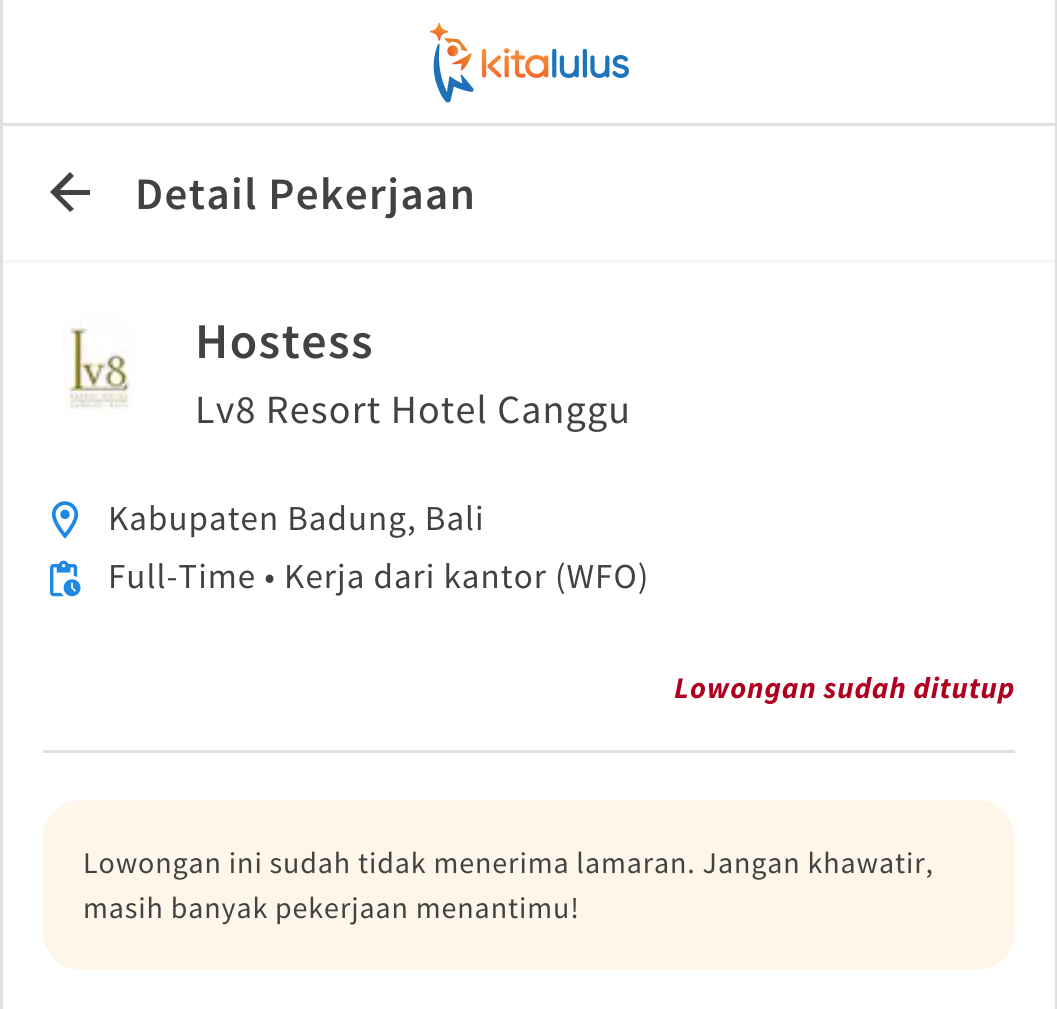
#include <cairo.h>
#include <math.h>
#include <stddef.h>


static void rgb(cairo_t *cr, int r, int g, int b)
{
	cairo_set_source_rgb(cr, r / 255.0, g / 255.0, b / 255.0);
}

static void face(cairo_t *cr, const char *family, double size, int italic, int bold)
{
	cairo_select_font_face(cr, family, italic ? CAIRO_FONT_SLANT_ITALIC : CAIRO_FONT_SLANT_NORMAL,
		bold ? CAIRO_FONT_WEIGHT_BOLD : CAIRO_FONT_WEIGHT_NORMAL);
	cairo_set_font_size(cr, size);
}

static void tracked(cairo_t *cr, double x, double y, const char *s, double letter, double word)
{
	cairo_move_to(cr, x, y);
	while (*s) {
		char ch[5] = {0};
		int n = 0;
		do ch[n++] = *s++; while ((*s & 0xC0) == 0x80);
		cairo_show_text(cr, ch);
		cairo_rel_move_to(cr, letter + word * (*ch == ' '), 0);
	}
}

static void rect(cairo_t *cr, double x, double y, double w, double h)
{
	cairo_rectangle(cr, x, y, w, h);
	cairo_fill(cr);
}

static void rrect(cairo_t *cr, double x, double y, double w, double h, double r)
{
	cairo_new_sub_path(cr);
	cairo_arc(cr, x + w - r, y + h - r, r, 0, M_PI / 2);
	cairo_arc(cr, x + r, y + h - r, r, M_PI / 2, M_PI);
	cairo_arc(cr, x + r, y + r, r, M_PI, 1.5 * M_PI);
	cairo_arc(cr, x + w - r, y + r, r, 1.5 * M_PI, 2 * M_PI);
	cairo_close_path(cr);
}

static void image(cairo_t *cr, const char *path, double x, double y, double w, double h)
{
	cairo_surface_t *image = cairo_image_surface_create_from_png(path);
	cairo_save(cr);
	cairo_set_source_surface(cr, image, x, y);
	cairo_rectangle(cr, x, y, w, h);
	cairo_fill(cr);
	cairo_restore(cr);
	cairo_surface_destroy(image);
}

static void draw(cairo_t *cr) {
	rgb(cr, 255, 255, 255);
	cairo_paint(cr);
	rgb(cr, 224, 224, 224);
	rect(cr, 1055, 0, 2, 1009);
	rect(cr, 0, 0, 3, 1009);
	rect(cr, 3, 123, 1052, 3);
	image(cr, "image0.png", 430, 23, 199, 80);
	rgb(cr, 245, 245, 245);
	rect(cr, 3, 260, 1052, 3);
	rgb(cr, 66, 66, 66);
	cairo_new_path(cr);
	cairo_move_to(cr, 90, 190);
	cairo_line_to(cr, 60, 190);
	cairo_line_to(cr, 74, 176);
	cairo_line_to(cr, 70, 172);
	cairo_line_to(cr, 50, 192);
	cairo_line_to(cr, 70, 212);
	cairo_line_to(cr, 74, 209);
	cairo_line_to(cr, 60, 195);
	cairo_line_to(cr, 90, 195);
	cairo_close_path(cr);
	cairo_fill(cr);
	face(cr, "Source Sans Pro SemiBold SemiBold", 45, 0, 0);
	tracked(cr, 135, 209, "Detail Pekerjaan", 1.4, 0);
	image(cr, "image1.png", 62, 313, 75, 102);
	face(cr, "Source Sans Pro SemiBold SemiBold", 50, 0, 0);
	tracked(cr, 195, 358, "Hostess", 1.5, 0);
	face(cr, "Source Sans Pro", 40, 0, 0);
	tracked(cr, 195, 423, "Lv8 Resort Hotel Canggu", 1.2, 0);
	image(cr, "image2.png", 51, 501, 28, 38);
	face(cr, "Source Sans Pro", 35, 0, 0);
	tracked(cr, 108, 530, "Kabupaten Badung, Bali", 1.05, 0);
	image(cr, "image3.png", 50, 560, 31, 37);
	tracked(cr, 108, 588, "Full-Time • Kerja dari kantor (WFO)", 1.05, 0);
	face(cr, "Source Sans Pro", 30, 1, 1);
	rgb(cr, 176, 0, 32);
	tracked(cr, 674, 698, "Lowongan sudah ditutup", 0.9, 0);
	rgb(cr, 224, 224, 224);
	rect(cr, 43, 750, 972, 3);
	rgb(cr, 255, 246, 234);
	rrect(cr, 43, 800, 972, 170, 38);
	cairo_fill(cr);
	face(cr, "Source Sans Pro", 30, 0, 0);
	rgb(cr, 66, 66, 66);
	tracked(cr, 83, 873, "Lowongan ini sudah tidak menerima lamaran. Jangan khawatir,", 0.9, 0);
	tracked(cr, 83, 918, "masih banyak pekerjaan menantimu!", 0.9, 0);
}

int main(void) {
	cairo_surface_t *surface = cairo_image_surface_create(CAIRO_FORMAT_RGB24, 1057, 1009);
	cairo_t *cr = cairo_create(surface);
	cairo_font_options_t *options = cairo_font_options_create();
	cairo_font_options_set_hint_metrics(options, CAIRO_HINT_METRICS_OFF);
	cairo_font_options_set_hint_style(options, CAIRO_HINT_STYLE_NONE);
	cairo_set_font_options(cr, options);
	cairo_set_miter_limit(cr, 4);
	draw(cr);
	cairo_surface_write_to_png(surface, "render.png");
	cairo_font_options_destroy(options);
	cairo_destroy(cr);
	cairo_surface_destroy(surface);
	return 0;
}
